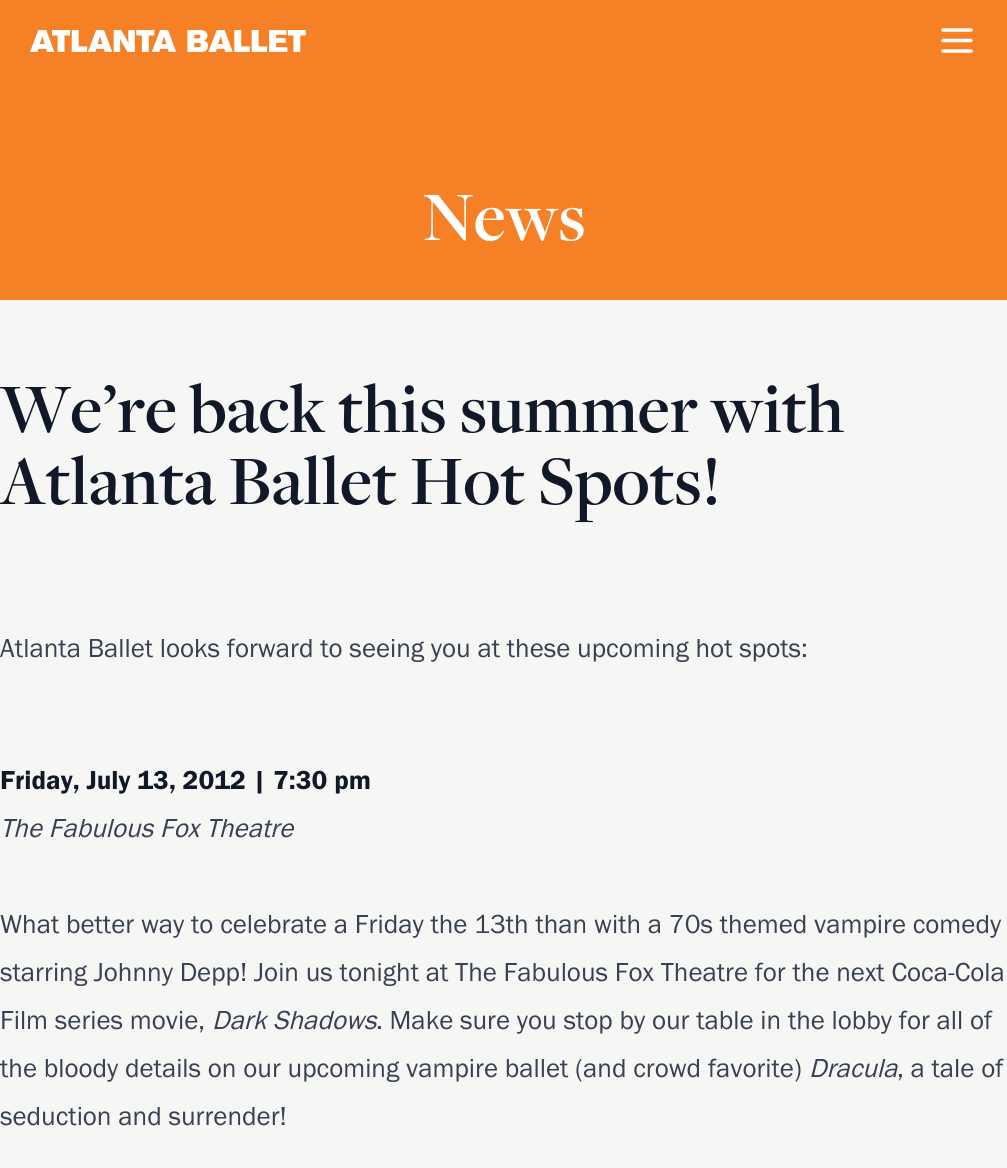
#include <cairo.h>
#include <math.h>
#include <stddef.h>


static void rgb(cairo_t *cr, int r, int g, int b)
{
	cairo_set_source_rgb(cr, r / 255.0, g / 255.0, b / 255.0);
}

static void face(cairo_t *cr, const char *family, double size, int italic, int bold)
{
	cairo_select_font_face(cr, family, italic ? CAIRO_FONT_SLANT_ITALIC : CAIRO_FONT_SLANT_NORMAL,
		bold ? CAIRO_FONT_WEIGHT_BOLD : CAIRO_FONT_WEIGHT_NORMAL);
	cairo_set_font_size(cr, size);
}

static void label(cairo_t *cr, double x, double y, const char *s)
{
	cairo_move_to(cr, x, y);
	cairo_show_text(cr, s);
}

static void rect(cairo_t *cr, double x, double y, double w, double h)
{
	cairo_rectangle(cr, x, y, w, h);
	cairo_fill(cr);
}

static void image(cairo_t *cr, const char *path, double x, double y, double w, double h)
{
	cairo_surface_t *image = cairo_image_surface_create_from_png(path);
	cairo_save(cr);
	cairo_set_source_surface(cr, image, x, y);
	cairo_rectangle(cr, x, y, w, h);
	cairo_fill(cr);
	cairo_restore(cr);
	cairo_surface_destroy(image);
}

static void draw(cairo_t *cr) {
	rgb(cr, 246, 246, 244);
	cairo_paint(cr);
	rgb(cr, 245, 128, 37);
	rect(cr, 0, 0, 1007, 300);
	image(cr, "image0.png", 30, 30, 276, 22);
	cairo_new_path(cr);
	cairo_move_to(cr, 943, 30);
	cairo_line_to(cr, 971, 30);
	cairo_move_to(cr, 943, 40.5);
	cairo_line_to(cr, 971, 40.5);
	cairo_move_to(cr, 943, 51);
	cairo_line_to(cr, 971, 51);
	rgb(cr, 255, 255, 255);
	cairo_set_line_width(cr, 3.5);
	cairo_set_line_cap(cr, CAIRO_LINE_CAP_ROUND);
	cairo_set_line_join(cr, CAIRO_LINE_JOIN_ROUND);
	cairo_stroke(cr);
	face(cr, "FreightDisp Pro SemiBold", 72, 0, 0);
	label(cr, 423, 240, "News");
	rgb(cr, 17, 24, 39);
	label(cr, 0, 432, "We’re back this summer with");
	label(cr, 0, 504, "Atlanta Ballet Hot Spots!");
	face(cr, "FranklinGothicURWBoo", 27, 0, 0);
	rgb(cr, 55, 65, 81);
	label(cr, 0, 657, "Atlanta Ballet looks forward to seeing you at these upcoming hot spots:");
	face(cr, "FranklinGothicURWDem", 27, 0, 0);
	rgb(cr, 17, 24, 39);
	label(cr, 0, 789, "Friday, July 13, 2012 | 7:30 pm");
	face(cr, "FranklinGothicURWBoo", 27, 1, 0);
	rgb(cr, 55, 65, 81);
	label(cr, 0, 837, "The Fabulous Fox Theatre");
	face(cr, "FranklinGothicURWBoo", 27, 0, 0);
	label(cr, 0, 933, "What better way to celebrate a Friday the 13th than with a 70s themed vampire comedy");
	label(cr, 0, 981, "starring Johnny Depp! Join us tonight at The Fabulous Fox Theatre for the next Coca-Cola");
	label(cr, 0, 1029, "Film series movie,");
	face(cr, "FranklinGothicURWBoo", 27, 1, 0);
	label(cr, 212, 1029, "Dark Shadows");
	face(cr, "FranklinGothicURWBoo", 27, 0, 0);
	label(cr, 376, 1029, ". Make sure you stop by our table in the lobby for all of");
	label(cr, 0, 1077, "the bloody details on our upcoming vampire ballet (and crowd favorite)");
	face(cr, "FranklinGothicURWBoo", 27, 1, 0);
	label(cr, 809, 1077, "Dracula");
	face(cr, "FranklinGothicURWBoo", 27, 0, 0);
	label(cr, 897, 1077, ", a tale of");
	label(cr, 0, 1125, "seduction and surrender!");
}

int main(void) {
	cairo_surface_t *surface = cairo_image_surface_create(CAIRO_FORMAT_RGB24, 1007, 1168);
	cairo_t *cr = cairo_create(surface);
	cairo_font_options_t *options = cairo_font_options_create();
	cairo_font_options_set_hint_metrics(options, CAIRO_HINT_METRICS_OFF);
	cairo_font_options_set_hint_style(options, CAIRO_HINT_STYLE_NONE);
	cairo_set_font_options(cr, options);
	cairo_set_miter_limit(cr, 4);
	draw(cr);
	cairo_surface_write_to_png(surface, "render.png");
	cairo_font_options_destroy(options);
	cairo_destroy(cr);
	cairo_surface_destroy(surface);
	return 0;
}
